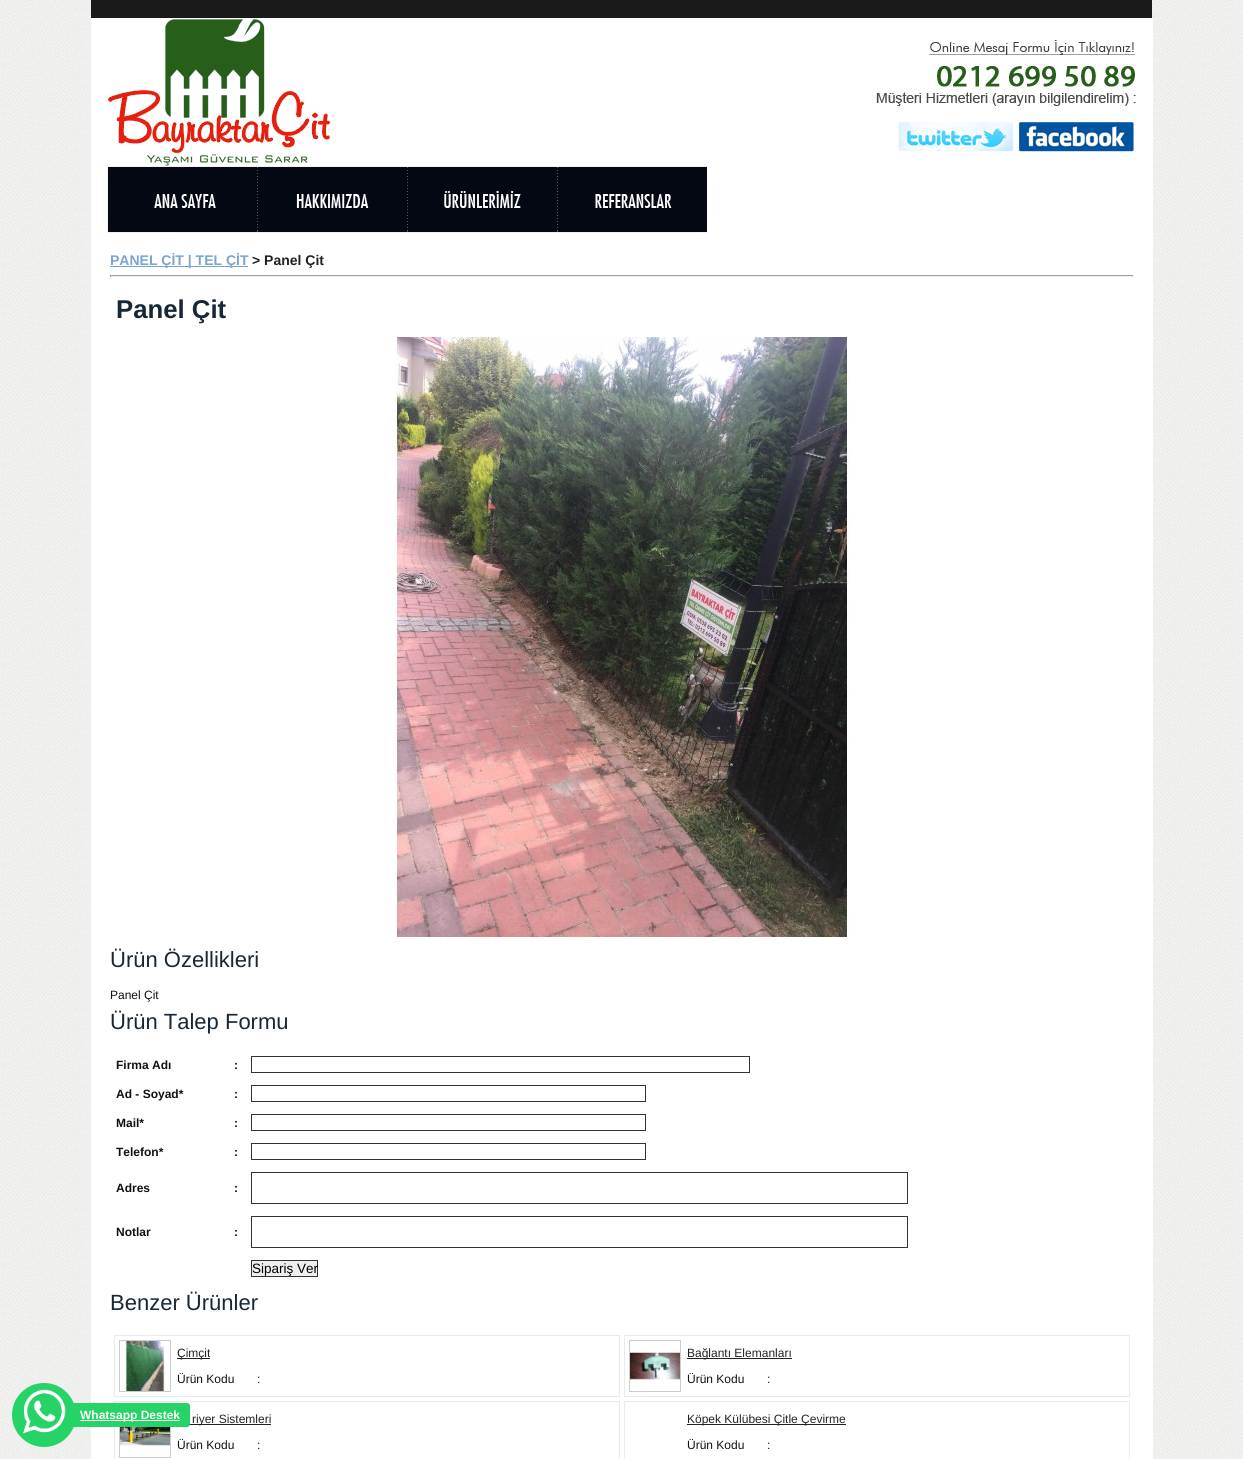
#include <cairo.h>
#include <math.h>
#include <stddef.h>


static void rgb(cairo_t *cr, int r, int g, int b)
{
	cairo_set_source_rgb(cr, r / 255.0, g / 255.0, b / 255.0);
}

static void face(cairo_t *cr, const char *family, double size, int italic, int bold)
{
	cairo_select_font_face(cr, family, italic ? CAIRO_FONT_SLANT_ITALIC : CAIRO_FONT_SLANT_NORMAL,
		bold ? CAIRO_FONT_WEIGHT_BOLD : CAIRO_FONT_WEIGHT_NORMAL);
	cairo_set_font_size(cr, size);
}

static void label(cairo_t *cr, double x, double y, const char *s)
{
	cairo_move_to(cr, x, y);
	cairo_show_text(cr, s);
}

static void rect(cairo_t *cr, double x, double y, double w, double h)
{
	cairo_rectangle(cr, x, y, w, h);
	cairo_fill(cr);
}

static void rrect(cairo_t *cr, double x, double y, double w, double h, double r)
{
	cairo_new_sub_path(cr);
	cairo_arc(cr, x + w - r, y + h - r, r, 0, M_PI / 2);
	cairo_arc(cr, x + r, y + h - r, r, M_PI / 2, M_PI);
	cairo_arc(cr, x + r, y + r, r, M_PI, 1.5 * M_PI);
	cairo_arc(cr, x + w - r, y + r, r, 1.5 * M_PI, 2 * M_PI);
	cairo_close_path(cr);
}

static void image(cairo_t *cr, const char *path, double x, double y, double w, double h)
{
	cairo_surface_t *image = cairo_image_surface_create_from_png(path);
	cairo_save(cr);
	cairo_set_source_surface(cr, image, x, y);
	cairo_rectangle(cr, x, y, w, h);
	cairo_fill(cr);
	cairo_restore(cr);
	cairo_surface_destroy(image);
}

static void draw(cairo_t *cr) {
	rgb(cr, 255, 255, 255);
	cairo_paint(cr);
	image(cr, "image0.png", 0, 0, 1243, 1459);
	rgb(cr, 25, 25, 25);
	rect(cr, 91, 0, 1061, 18);
	rgb(cr, 255, 255, 255);
	rect(cr, 91, 18, 1062, 1441);
	image(cr, "image1.png", 107, 166, 150, 67);
	image(cr, "image2.png", 257, 166, 150, 67);
	image(cr, "image3.png", 407, 166, 150, 67);
	image(cr, "image4.png", 557, 166, 150, 67);
	rgb(cr, 120, 165, 209);
	rect(cr, 110, 266, 138, 1);
	face(cr, "Liberation Sans", 14, 0, 1);
	label(cr, 110, 265, "PANEL ÇİT | TEL ÇİT");
	rgb(cr, 34, 34, 34);
	label(cr, 252, 265, "> Panel Çit");
	rgb(cr, 159, 159, 159);
	rect(cr, 110, 275, 1024, 1);
	rgb(cr, 238, 238, 238);
	rect(cr, 1133, 275, 1, 2);
	rect(cr, 110, 276, 1024, 1);
	rgb(cr, 159, 159, 159);
	rect(cr, 110, 275, 1, 2);
	face(cr, "Liberation Sans", 25.75, 0, 1);
	rgb(cr, 24, 39, 54);
	label(cr, 116, 318, "Panel Çit");
	image(cr, "image5.png", 390, 337, 460, 600);
	face(cr, "Liberation Sans", 22, 0, 0);
	label(cr, 110, 967, "Ürün Özellikleri");
	face(cr, "Liberation Sans", 12, 0, 0);
	rgb(cr, 17, 17, 17);
	label(cr, 110, 999, "Panel Çit");
	face(cr, "Liberation Sans", 22, 0, 0);
	rgb(cr, 24, 39, 54);
	label(cr, 110, 1029, "Ürün Talep Formu");
	face(cr, "Liberation Sans", 12, 0, 1);
	rgb(cr, 17, 17, 17);
	label(cr, 116, 1069, "Firma Adı");
	label(cr, 234, 1069, ":");
	cairo_rectangle(cr, 251.5, 1056.5, 498, 16);
	rgb(cr, 51, 51, 51);
	cairo_set_line_width(cr, 1);
	cairo_stroke(cr);
	rgb(cr, 17, 17, 17);
	label(cr, 116, 1098, "Ad - Soyad*");
	label(cr, 234, 1098, ":");
	cairo_rectangle(cr, 251.5, 1085.5, 394, 16);
	rgb(cr, 51, 51, 51);
	cairo_stroke(cr);
	rgb(cr, 17, 17, 17);
	label(cr, 116, 1127, "Mail*");
	label(cr, 234, 1127, ":");
	cairo_rectangle(cr, 251.5, 1114.5, 394, 16);
	rgb(cr, 51, 51, 51);
	cairo_stroke(cr);
	rgb(cr, 17, 17, 17);
	label(cr, 116, 1156, "Telefon*");
	label(cr, 234, 1156, ":");
	cairo_rectangle(cr, 251.5, 1143.5, 394, 16);
	rgb(cr, 51, 51, 51);
	cairo_stroke(cr);
	rgb(cr, 17, 17, 17);
	label(cr, 116, 1192, "Adres");
	label(cr, 234, 1192, ":");
	cairo_rectangle(cr, 251.5, 1172.5, 656, 31);
	rgb(cr, 51, 51, 51);
	cairo_stroke(cr);
	rgb(cr, 17, 17, 17);
	label(cr, 116, 1236, "Notlar");
	label(cr, 234, 1236, ":");
	cairo_rectangle(cr, 251.5, 1216.5, 656, 31);
	rgb(cr, 51, 51, 51);
	cairo_stroke(cr);
	rgb(cr, 239, 239, 239);
	cairo_rectangle(cr, 251.5, 1260.5, 66, 16);
	cairo_fill_preserve(cr);
	rgb(cr, 51, 51, 51);
	cairo_stroke(cr);
	face(cr, "Liberation Sans", 13.5, 0, 0);
	rgb(cr, 0, 0, 0);
	label(cr, 252, 1273, "Sipariş Ver");
	face(cr, "Liberation Sans", 22, 0, 0);
	rgb(cr, 24, 39, 54);
	label(cr, 110, 1310, "Benzer Ürünler");
	cairo_rectangle(cr, 114.5, 1335.5, 505, 61);
	rgb(cr, 234, 234, 234);
	cairo_stroke(cr);
	cairo_rectangle(cr, 119.5, 1340.5, 51, 51);
	rgb(cr, 204, 204, 204);
	cairo_stroke(cr);
	image(cr, "image6.png", 125, 1341, 40, 50);
	rgb(cr, 34, 34, 34);
	rect(cr, 177, 1358, 33, 1);
	face(cr, "Liberation Sans", 12, 0, 0);
	label(cr, 177, 1357, "Çimçit");
	rgb(cr, 17, 17, 17);
	label(cr, 177, 1383, "Ürün Kodu");
	label(cr, 257, 1383, ":");
	cairo_rectangle(cr, 624.5, 1335.5, 505, 61);
	rgb(cr, 234, 234, 234);
	cairo_stroke(cr);
	cairo_rectangle(cr, 629.5, 1340.5, 51, 51);
	rgb(cr, 204, 204, 204);
	cairo_stroke(cr);
	image(cr, "image7.png", 630, 1352, 50, 28);
	rgb(cr, 34, 34, 34);
	rect(cr, 687, 1358, 105, 1);
	label(cr, 687, 1357, "Bağlantı Elemanları");
	rgb(cr, 17, 17, 17);
	label(cr, 687, 1383, "Ürün Kodu");
	label(cr, 767, 1383, ":");
	cairo_rectangle(cr, 114.5, 1401.5, 505, 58);
	rgb(cr, 234, 234, 234);
	cairo_stroke(cr);
	cairo_rectangle(cr, 119.5, 1406.5, 51, 51);
	rgb(cr, 204, 204, 204);
	cairo_stroke(cr);
	image(cr, "image8.png", 120, 1427, 50, 19);
	rgb(cr, 34, 34, 34);
	rect(cr, 189, 1424, 82, 1);
	label(cr, 192, 1423, "riyer Sistemleri");
	rgb(cr, 17, 17, 17);
	label(cr, 177, 1449, "Ürün Kodu");
	label(cr, 257, 1449, ":");
	cairo_rectangle(cr, 624.5, 1401.5, 505, 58);
	rgb(cr, 234, 234, 234);
	cairo_stroke(cr);
	rgb(cr, 34, 34, 34);
	rect(cr, 687, 1424, 159, 1);
	label(cr, 687, 1423, "Köpek Külübesi Çitle Çevirme");
	rgb(cr, 17, 17, 17);
	label(cr, 687, 1449, "Ürün Kodu");
	label(cr, 767, 1449, ":");
	image(cr, "image9.png", 108, 19, 222, 147);
	image(cr, "image10.png", 929, 40, 207, 15);
	image(cr, "image11.png", 876, 66, 260, 40);
	image(cr, "image12.png", 898, 122, 116, 30);
	image(cr, "image13.png", 1019, 122, 115, 30);
	rgb(cr, 37, 211, 102);
	cairo_arc(cr, 44, 1415, 32, 0, 2 * M_PI);
	cairo_fill(cr);
	image(cr, "image14.png", 23, 1389, 43, 45);
	rrect(cr, 70, 1403, 120, 24, 3);
	cairo_fill(cr);
	rgb(cr, 255, 255, 255);
	rect(cr, 80, 1420, 100, 1);
	face(cr, "Liberation Sans", 12, 0, 1);
	label(cr, 80, 1419, "Whatsapp Destek");
}

int main(void) {
	cairo_surface_t *surface = cairo_image_surface_create(CAIRO_FORMAT_RGB24, 1243, 1459);
	cairo_t *cr = cairo_create(surface);
	cairo_font_options_t *options = cairo_font_options_create();
	cairo_font_options_set_hint_metrics(options, CAIRO_HINT_METRICS_OFF);
	cairo_font_options_set_hint_style(options, CAIRO_HINT_STYLE_NONE);
	cairo_set_font_options(cr, options);
	cairo_set_miter_limit(cr, 4);
	draw(cr);
	cairo_surface_write_to_png(surface, "render.png");
	cairo_font_options_destroy(options);
	cairo_destroy(cr);
	cairo_surface_destroy(surface);
	return 0;
}
